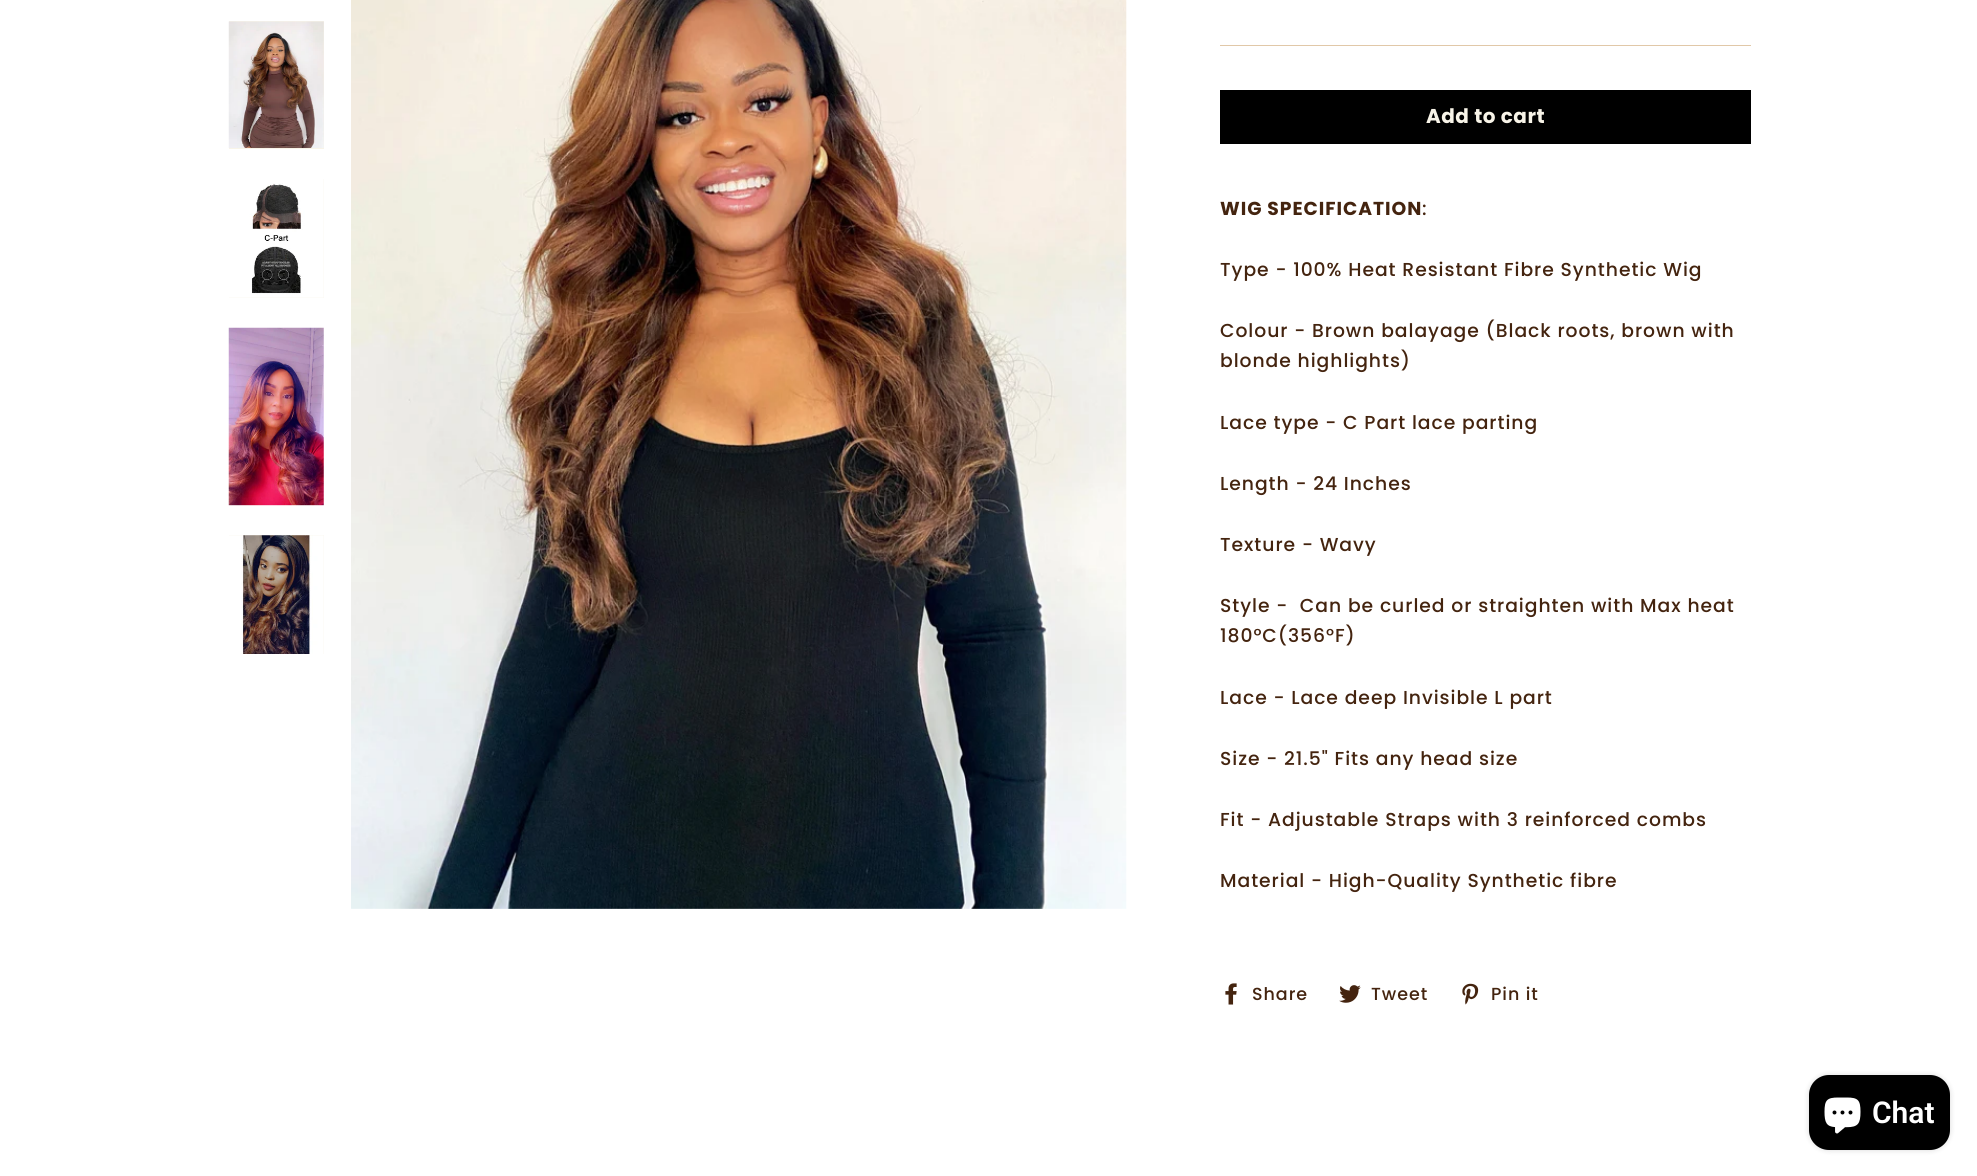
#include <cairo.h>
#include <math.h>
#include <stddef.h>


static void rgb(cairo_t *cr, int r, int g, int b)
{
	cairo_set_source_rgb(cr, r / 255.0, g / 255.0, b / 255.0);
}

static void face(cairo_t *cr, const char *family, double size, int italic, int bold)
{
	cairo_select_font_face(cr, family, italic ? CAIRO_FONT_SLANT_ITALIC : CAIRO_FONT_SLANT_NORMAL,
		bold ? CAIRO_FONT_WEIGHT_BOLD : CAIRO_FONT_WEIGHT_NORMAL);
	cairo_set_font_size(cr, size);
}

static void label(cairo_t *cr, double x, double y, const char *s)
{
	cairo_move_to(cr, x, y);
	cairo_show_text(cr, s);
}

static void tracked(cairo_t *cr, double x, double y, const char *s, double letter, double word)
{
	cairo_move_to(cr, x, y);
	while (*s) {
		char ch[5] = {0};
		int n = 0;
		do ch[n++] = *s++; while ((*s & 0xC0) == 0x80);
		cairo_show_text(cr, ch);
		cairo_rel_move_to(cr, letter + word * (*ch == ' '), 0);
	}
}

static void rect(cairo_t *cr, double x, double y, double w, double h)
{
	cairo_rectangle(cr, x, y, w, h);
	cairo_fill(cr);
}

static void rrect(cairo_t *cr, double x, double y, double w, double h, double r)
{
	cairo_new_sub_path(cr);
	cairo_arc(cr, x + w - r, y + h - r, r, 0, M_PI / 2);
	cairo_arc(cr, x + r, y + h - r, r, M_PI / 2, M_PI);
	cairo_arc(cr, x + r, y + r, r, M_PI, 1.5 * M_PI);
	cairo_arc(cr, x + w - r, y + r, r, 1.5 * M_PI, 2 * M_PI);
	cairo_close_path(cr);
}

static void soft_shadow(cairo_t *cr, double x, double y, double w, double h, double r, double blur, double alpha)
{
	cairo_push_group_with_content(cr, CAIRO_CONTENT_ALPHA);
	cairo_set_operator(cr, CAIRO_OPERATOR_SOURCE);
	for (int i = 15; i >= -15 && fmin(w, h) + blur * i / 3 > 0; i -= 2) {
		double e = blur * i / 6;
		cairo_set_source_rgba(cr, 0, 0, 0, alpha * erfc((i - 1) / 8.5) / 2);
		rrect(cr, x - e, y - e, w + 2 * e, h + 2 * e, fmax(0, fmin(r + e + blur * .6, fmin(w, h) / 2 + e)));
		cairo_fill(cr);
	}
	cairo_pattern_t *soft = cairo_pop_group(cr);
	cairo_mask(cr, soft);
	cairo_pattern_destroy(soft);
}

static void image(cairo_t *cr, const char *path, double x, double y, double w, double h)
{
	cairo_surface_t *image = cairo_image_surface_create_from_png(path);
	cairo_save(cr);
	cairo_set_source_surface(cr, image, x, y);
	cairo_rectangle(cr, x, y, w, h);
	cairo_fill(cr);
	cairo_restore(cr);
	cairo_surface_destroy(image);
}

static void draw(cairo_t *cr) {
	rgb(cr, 255, 255, 255);
	cairo_paint(cr);
	rgb(cr, 248, 244, 232);
	rect(cr, 229, 21, 95, 128);
	image(cr, "image0.png", 228, 21, 96, 127);
	rect(cr, 229, 179, 95, 119);
	image(cr, "image1.png", 229, 179, 95, 119);
	image(cr, "image2.png", 228, 327, 96, 179);
	rect(cr, 229, 535, 95, 119);
	image(cr, "image3.png", 229, 535, 95, 119);
	image(cr, "image4.png", 351, 0, 776, 909);
	rgb(cr, 225, 200, 168);
	rect(cr, 1220, 45, 531, 1);
	rgb(cr, 0, 0, 0);
	rect(cr, 1220, 90, 531, 54);
	face(cr, "Poppins", 20, 0, 1);
	rgb(cr, 248, 244, 232);
	tracked(cr, 1426, 123, "Add to cart", 0.5, 0);
	face(cr, "Poppins", 18.75, 0, 1);
	rgb(cr, 68, 36, 15);
	tracked(cr, 1220, 215, "WIG SPECIFICATION", 0.95, 0);
	face(cr, "Poppins Medium", 18.75, 0, 0);
	tracked(cr, 1422, 215, ":", 0.95, 0);
	tracked(cr, 1220, 276, "Type - 100% Heat Resistant Fibre Synthetic Wig", 0.95, 0);
	tracked(cr, 1220, 337, "Colour - Brown balayage (Black roots, brown with", 0.95, 0);
	tracked(cr, 1220, 367, "blonde highlights)", 0.95, 0);
	tracked(cr, 1220, 429, "Lace type - C Part lace parting", 0.95, 0);
	tracked(cr, 1220, 490, "Length - 24 Inches", 0.95, 0);
	tracked(cr, 1220, 551, "Texture - Wavy", 0.95, 0);
	tracked(cr, 1220, 612, "Style -  Can be curled or straighten with Max heat", 0.95, 0);
	tracked(cr, 1220, 642, "180°C(356°F)", 0.95, 0);
	tracked(cr, 1220, 704, "Lace - Lace deep Invisible L part", 0.95, 0);
	tracked(cr, 1220, 765, "Size - 21.5\" Fits any head size", 0.95, 0);
	tracked(cr, 1220, 826, "Fit - Adjustable Straps with 3 reinforced combs", 0.95, 0);
	tracked(cr, 1220, 887, "Material - High-Quality Synthetic fibre", 0.95, 0);
	image(cr, "image5.png", 1225, 983, 12, 22);
	face(cr, "Poppins Medium", 17.5, 0, 0);
	tracked(cr, 1252, 1000, "Share", 0.95, 0);
	image(cr, "image6.png", 1339, 985, 22, 18);
	tracked(cr, 1371, 1000, "Tweet", 0.95, 0);
	image(cr, "image7.png", 1462, 983, 17, 22);
	tracked(cr, 1491, 1000, "Pin it", 0.95, 0);
	rgb(cr, 0, 0, 0);
	soft_shadow(cr, 1809, 1075, 141, 75, 20, 3, 0.15);
	rgb(cr, 0, 0, 0);
	rrect(cr, 1809, 1075, 141, 75, 20);
	cairo_fill(cr);
	image(cr, "image8.png", 1824, 1097, 37, 37);
	face(cr, "Roboto SemiBold", 30, 0, 0);
	rgb(cr, 255, 255, 255);
	label(cr, 1872, 1123, "Chat");
}

int main(void) {
	cairo_surface_t *surface = cairo_image_surface_create(CAIRO_FORMAT_RGB24, 1977, 1176);
	cairo_t *cr = cairo_create(surface);
	cairo_font_options_t *options = cairo_font_options_create();
	cairo_font_options_set_hint_metrics(options, CAIRO_HINT_METRICS_OFF);
	cairo_font_options_set_hint_style(options, CAIRO_HINT_STYLE_NONE);
	cairo_set_font_options(cr, options);
	cairo_set_miter_limit(cr, 4);
	draw(cr);
	cairo_surface_write_to_png(surface, "render.png");
	cairo_font_options_destroy(options);
	cairo_destroy(cr);
	cairo_surface_destroy(surface);
	return 0;
}
